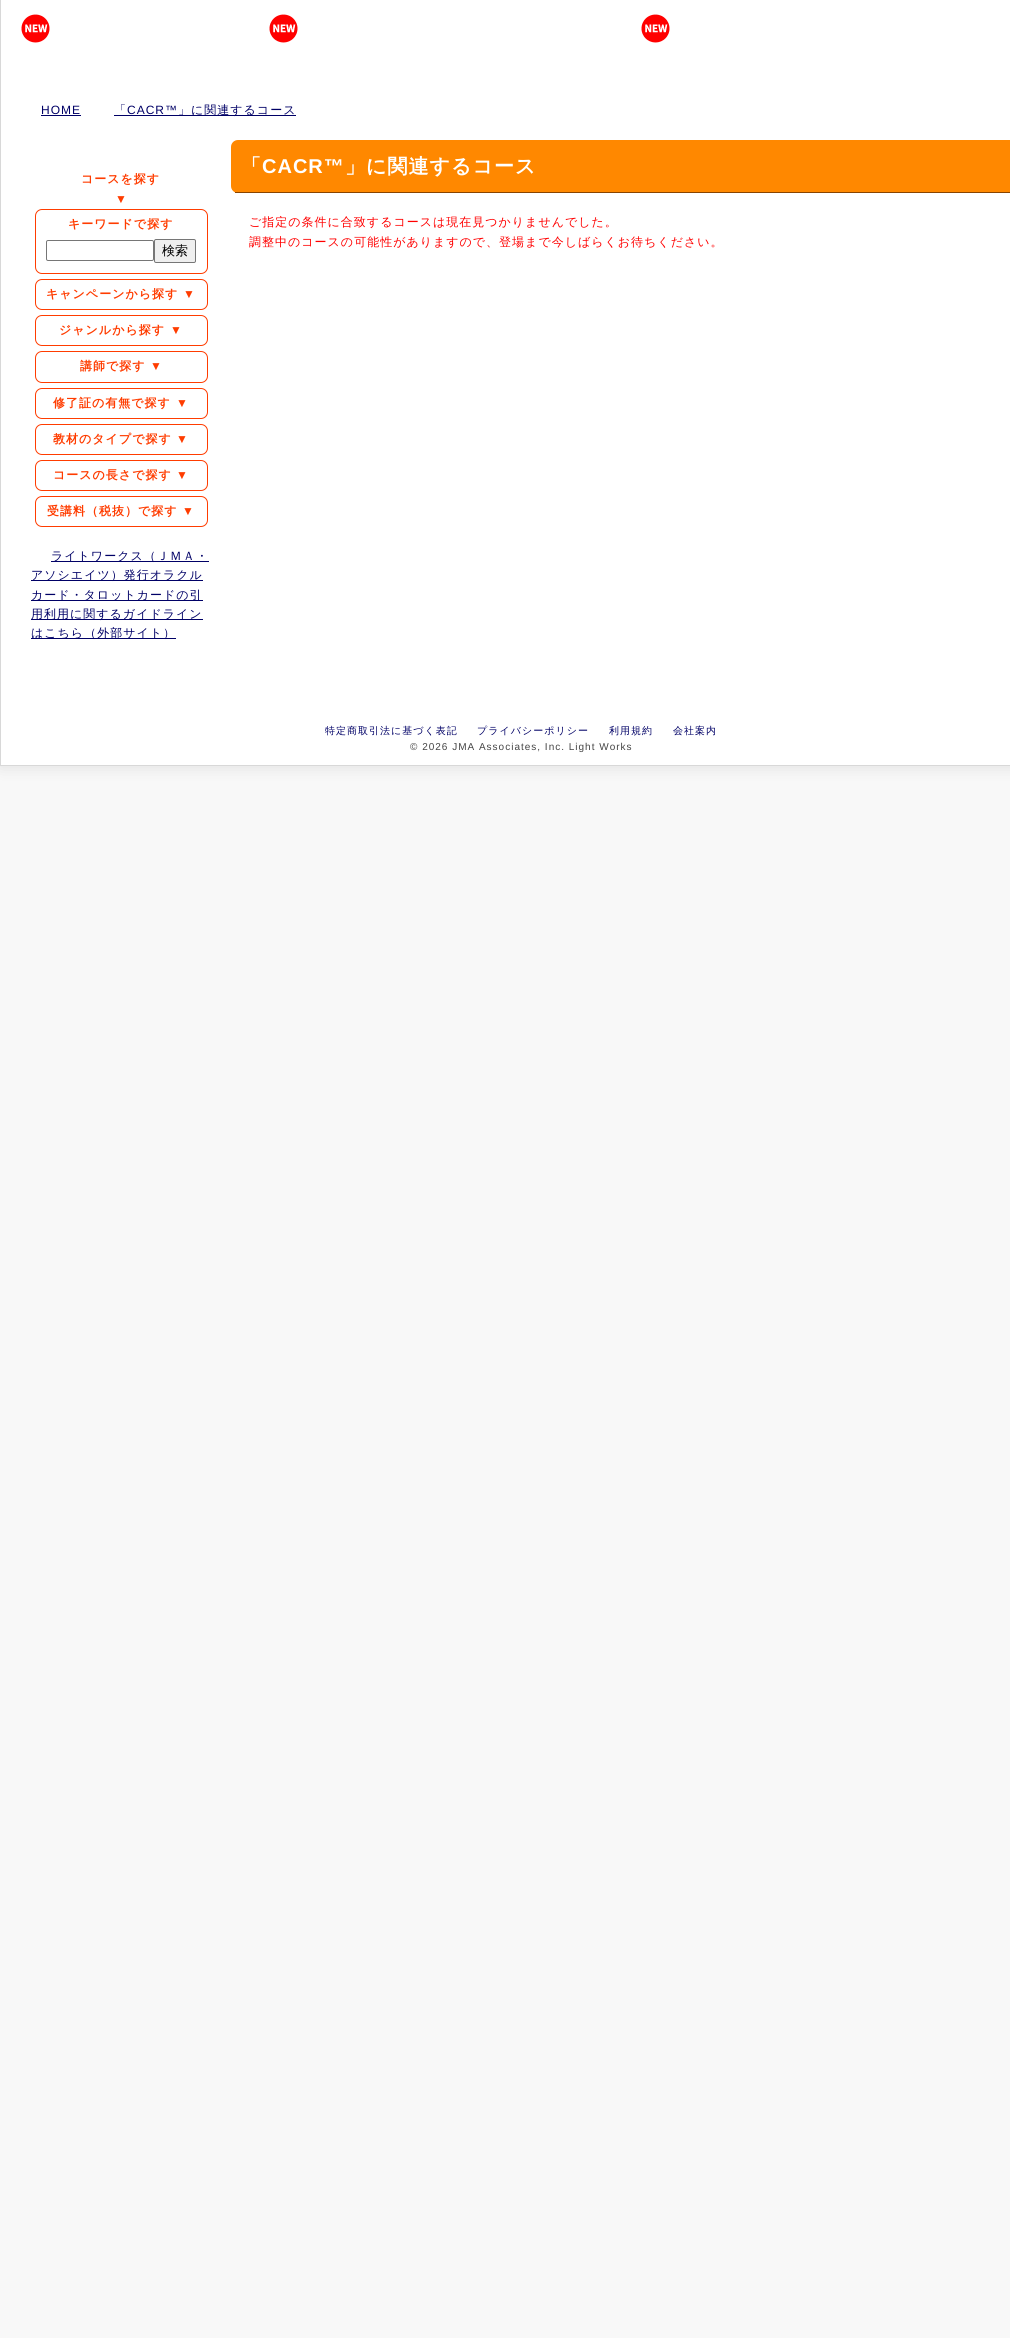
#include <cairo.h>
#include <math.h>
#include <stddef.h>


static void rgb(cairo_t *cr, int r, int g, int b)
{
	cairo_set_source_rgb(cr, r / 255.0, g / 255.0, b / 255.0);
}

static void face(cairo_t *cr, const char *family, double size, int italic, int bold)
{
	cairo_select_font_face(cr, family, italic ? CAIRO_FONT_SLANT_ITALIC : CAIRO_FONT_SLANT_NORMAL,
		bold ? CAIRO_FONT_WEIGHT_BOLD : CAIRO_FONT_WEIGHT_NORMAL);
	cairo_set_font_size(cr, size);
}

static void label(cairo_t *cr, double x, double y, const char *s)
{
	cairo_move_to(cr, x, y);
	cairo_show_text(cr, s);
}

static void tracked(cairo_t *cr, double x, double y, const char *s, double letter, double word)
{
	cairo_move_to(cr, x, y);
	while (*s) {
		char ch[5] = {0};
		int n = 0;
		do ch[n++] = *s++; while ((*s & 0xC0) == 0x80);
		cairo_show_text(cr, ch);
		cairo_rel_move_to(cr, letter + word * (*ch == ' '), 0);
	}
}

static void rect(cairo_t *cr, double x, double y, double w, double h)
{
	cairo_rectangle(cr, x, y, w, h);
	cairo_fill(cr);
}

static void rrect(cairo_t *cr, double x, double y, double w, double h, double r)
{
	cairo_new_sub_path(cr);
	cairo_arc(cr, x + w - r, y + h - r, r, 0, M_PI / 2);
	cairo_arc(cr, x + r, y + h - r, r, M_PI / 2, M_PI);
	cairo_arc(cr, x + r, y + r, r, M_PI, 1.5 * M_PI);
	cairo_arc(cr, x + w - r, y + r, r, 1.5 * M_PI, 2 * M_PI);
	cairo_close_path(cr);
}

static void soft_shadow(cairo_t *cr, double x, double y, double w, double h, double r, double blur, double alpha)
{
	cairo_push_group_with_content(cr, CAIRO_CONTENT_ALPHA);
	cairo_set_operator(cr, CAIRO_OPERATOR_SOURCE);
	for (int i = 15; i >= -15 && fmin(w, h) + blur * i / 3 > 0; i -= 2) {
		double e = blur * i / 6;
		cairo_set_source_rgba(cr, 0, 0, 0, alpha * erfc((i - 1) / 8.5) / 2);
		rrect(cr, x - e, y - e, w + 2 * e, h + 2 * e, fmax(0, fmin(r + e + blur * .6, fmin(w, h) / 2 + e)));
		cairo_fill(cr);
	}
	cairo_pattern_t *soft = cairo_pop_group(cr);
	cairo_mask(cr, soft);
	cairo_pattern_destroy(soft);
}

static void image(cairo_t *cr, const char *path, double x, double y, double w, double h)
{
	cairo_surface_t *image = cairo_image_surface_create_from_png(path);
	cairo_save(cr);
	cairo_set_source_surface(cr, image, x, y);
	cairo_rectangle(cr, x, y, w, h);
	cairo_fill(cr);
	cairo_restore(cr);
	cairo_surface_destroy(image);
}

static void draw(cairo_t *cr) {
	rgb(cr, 248, 248, 248);
	cairo_paint(cr);
	rgb(cr, 0, 0, 0);
	soft_shadow(cr, 0, 1, 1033, 766, 0, 7.5, 0.1);
	rgb(cr, 255, 255, 255);
	rect(cr, 1, 0, 1009, 765);
	rgb(cr, 216, 216, 216);
	rect(cr, 0, 765, 1010, 1);
	rect(cr, 0, 0, 1, 766);
	image(cr, "image0.png", 21, 14, 29, 29);
	image(cr, "image0.png", 269, 14, 29, 29);
	image(cr, "image0.png", 641, 14, 29, 29);
	face(cr, "Liberation Sans", 12, 0, 0);
	rgb(cr, 0, 0, 102);
	tracked(cr, 41, 114, "HOME", 1, 0);
	rect(cr, 41, 115, 40, 1);
	face(cr, "WenQuanYi Zen Hei Medium", 12, 0, 0);
	tracked(cr, 114, 114, "「", 1, 0);
	face(cr, "Liberation Sans", 12, 0, 0);
	tracked(cr, 127, 114, "CACR™", 1, 0);
	rect(cr, 114, 115, 182, 1);
	face(cr, "WenQuanYi Zen Hei Medium", 12, 0, 0);
	tracked(cr, 178, 114, "」に関連するコース", 1, 0);
	face(cr, "WenQuanYi Zen Hei", 12, 0, 1);
	rgb(cr, 255, 60, 0);
	tracked(cr, 81, 183, "コースを探す", 1, 0);
	face(cr, "Liberation Sans", 12, 0, 1);
	tracked(cr, 115, 203, "▼", 1, 0);
	rrect(cr, 35.5, 209.5, 172, 64, 6.5);
	cairo_set_line_width(cr, 1);
	cairo_stroke(cr);
	face(cr, "WenQuanYi Zen Hei", 12, 0, 1);
	tracked(cr, 68, 228, "キーワードで探す", 1, 0);
	rrect(cr, 46.5, 240.5, 107, 20, 1.5);
	rgb(cr, 118, 118, 118);
	cairo_stroke(cr);
	rgb(cr, 239, 239, 239);
	rrect(cr, 154.5, 239.5, 41, 23, 1.5);
	cairo_fill_preserve(cr);
	rgb(cr, 118, 118, 118);
	cairo_stroke(cr);
	face(cr, "WenQuanYi Zen Hei Medium", 13, 0, 0);
	rgb(cr, 0, 0, 0);
	label(cr, 162, 255, "検索");
	rrect(cr, 35.5, 279.5, 172, 30, 6.5);
	rgb(cr, 255, 60, 0);
	cairo_stroke(cr);
	face(cr, "WenQuanYi Zen Hei", 12, 0, 1);
	tracked(cr, 46, 298, "キャンペーンから探す", 1, 0);
	face(cr, "Liberation Sans", 12, 0, 1);
	tracked(cr, 183, 298, "▼", 1, 0);
	rrect(cr, 35.5, 315.5, 172, 30, 6.5);
	cairo_stroke(cr);
	face(cr, "WenQuanYi Zen Hei", 12, 0, 1);
	tracked(cr, 59, 334, "ジャンルから探す", 1, 0);
	face(cr, "Liberation Sans", 12, 0, 1);
	tracked(cr, 170, 334, "▼", 1, 0);
	rrect(cr, 35.5, 351.5, 172, 31, 6.5);
	cairo_stroke(cr);
	face(cr, "WenQuanYi Zen Hei", 12, 0, 1);
	tracked(cr, 80, 370, "講師で探す", 1, 0);
	face(cr, "Liberation Sans", 12, 0, 1);
	tracked(cr, 150, 370, "▼", 1, 0);
	rrect(cr, 35.5, 388.5, 172, 30, 6.5);
	cairo_stroke(cr);
	face(cr, "WenQuanYi Zen Hei", 12, 0, 1);
	tracked(cr, 53, 407, "修了証の有無で探す", 1, 0);
	face(cr, "Liberation Sans", 12, 0, 1);
	tracked(cr, 176, 407, "▼", 1, 0);
	rrect(cr, 35.5, 424.5, 172, 30, 6.5);
	cairo_stroke(cr);
	face(cr, "WenQuanYi Zen Hei", 12, 0, 1);
	tracked(cr, 53, 443, "教材のタイプで探す", 1, 0);
	face(cr, "Liberation Sans", 12, 0, 1);
	tracked(cr, 176, 443, "▼", 1, 0);
	rrect(cr, 35.5, 460.5, 172, 30, 6.5);
	cairo_stroke(cr);
	face(cr, "WenQuanYi Zen Hei", 12, 0, 1);
	tracked(cr, 53, 479, "コースの長さで探す", 1, 0);
	face(cr, "Liberation Sans", 12, 0, 1);
	tracked(cr, 176, 479, "▼", 1, 0);
	rrect(cr, 35.5, 496.5, 172, 30, 6.5);
	cairo_stroke(cr);
	face(cr, "WenQuanYi Zen Hei", 12, 0, 1);
	tracked(cr, 47, 515, "受講料（税抜）で探す", 1, 0);
	face(cr, "Liberation Sans", 12, 0, 1);
	tracked(cr, 182, 515, "▼", 1, 0);
	rgb(cr, 0, 0, 102);
	rect(cr, 51, 561, 158, 1);
	face(cr, "WenQuanYi Zen Hei Medium", 12, 0, 0);
	tracked(cr, 51, 560, "ライトワークス（ＪＭＡ・", 1, 0);
	rect(cr, 31, 580, 172, 1);
	tracked(cr, 31, 579, "アソシエイツ）発行オラクル", 1, 0);
	rect(cr, 31, 600, 172, 1);
	tracked(cr, 31, 599, "カード・タロットカードの引", 1, 0);
	rect(cr, 31, 619, 172, 1);
	tracked(cr, 31, 618, "用利用に関するガイドライン", 1, 0);
	rect(cr, 31, 638, 145, 1);
	tracked(cr, 31, 637, "はこちら（外部サイト）", 1, 0);
	rgb(cr, 255, 136, 0);
	rrect(cr, 231, 140, 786, 53, 7);
	cairo_fill(cr);
	rgb(cr, 136, 68, 0);
	rect(cr, 235, 192, 775, 1);
	face(cr, "WenQuanYi Zen Hei", 20, 0, 1);
	rgb(cr, 255, 255, 255);
	tracked(cr, 241, 173, "「", 1, 0);
	face(cr, "Liberation Sans", 20, 0, 1);
	tracked(cr, 262, 173, "CACR™", 1, 0);
	face(cr, "WenQuanYi Zen Hei", 20, 0, 1);
	tracked(cr, 345, 173, "」に関連するコース", 1, 0);
	face(cr, "WenQuanYi Zen Hei Medium", 12, 0, 0);
	rgb(cr, 255, 0, 0);
	tracked(cr, 249, 226, "ご指定の条件に合致するコースは現在見つかりませんでした。", 1, 0);
	tracked(cr, 249, 246, "調整中のコースの可能性がありますので、登場まで今しばらくお待ちください。", 1, 0);
	face(cr, "WenQuanYi Zen Hei Medium", 10, 0, 0);
	rgb(cr, 0, 0, 102);
	tracked(cr, 325, 734, "特定商取引法に基づく表記", 1, 0);
	tracked(cr, 477, 734, "プライバシーポリシー", 1, 0);
	tracked(cr, 609, 734, "利用規約", 1, 0);
	tracked(cr, 673, 734, "会社案内", 1, 0);
	face(cr, "Liberation Sans", 10, 0, 0);
	rgb(cr, 68, 68, 68);
	tracked(cr, 410, 750, "© 2026 JMA Associates, Inc. Light Works", 1, 0);
}

int main(void) {
	cairo_surface_t *surface = cairo_image_surface_create(CAIRO_FORMAT_RGB24, 1010, 2338);
	cairo_t *cr = cairo_create(surface);
	cairo_font_options_t *options = cairo_font_options_create();
	cairo_font_options_set_hint_metrics(options, CAIRO_HINT_METRICS_OFF);
	cairo_font_options_set_hint_style(options, CAIRO_HINT_STYLE_NONE);
	cairo_set_font_options(cr, options);
	cairo_set_miter_limit(cr, 4);
	draw(cr);
	cairo_surface_write_to_png(surface, "render.png");
	cairo_font_options_destroy(options);
	cairo_destroy(cr);
	cairo_surface_destroy(surface);
	return 0;
}
